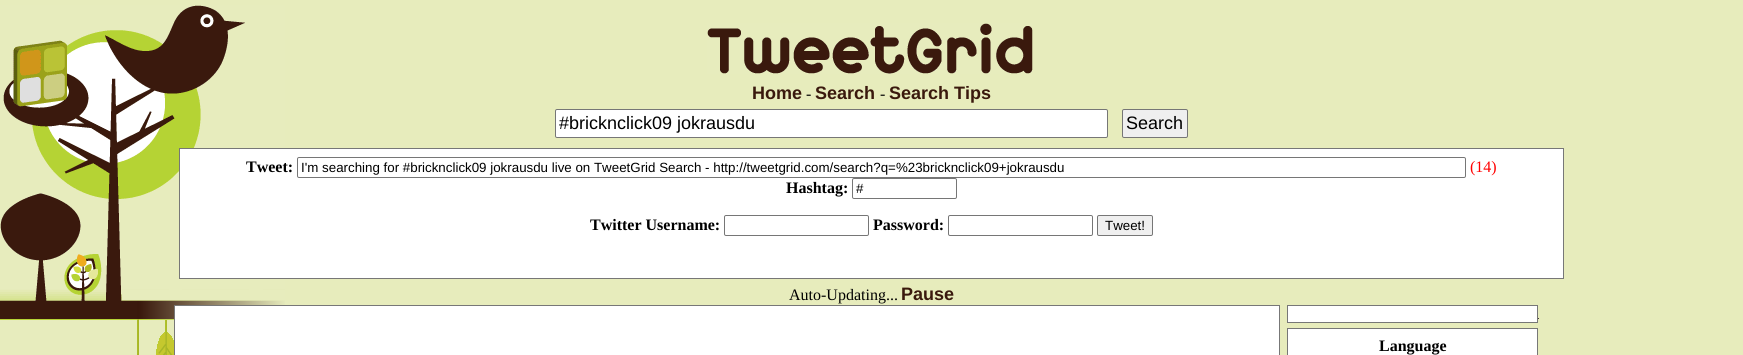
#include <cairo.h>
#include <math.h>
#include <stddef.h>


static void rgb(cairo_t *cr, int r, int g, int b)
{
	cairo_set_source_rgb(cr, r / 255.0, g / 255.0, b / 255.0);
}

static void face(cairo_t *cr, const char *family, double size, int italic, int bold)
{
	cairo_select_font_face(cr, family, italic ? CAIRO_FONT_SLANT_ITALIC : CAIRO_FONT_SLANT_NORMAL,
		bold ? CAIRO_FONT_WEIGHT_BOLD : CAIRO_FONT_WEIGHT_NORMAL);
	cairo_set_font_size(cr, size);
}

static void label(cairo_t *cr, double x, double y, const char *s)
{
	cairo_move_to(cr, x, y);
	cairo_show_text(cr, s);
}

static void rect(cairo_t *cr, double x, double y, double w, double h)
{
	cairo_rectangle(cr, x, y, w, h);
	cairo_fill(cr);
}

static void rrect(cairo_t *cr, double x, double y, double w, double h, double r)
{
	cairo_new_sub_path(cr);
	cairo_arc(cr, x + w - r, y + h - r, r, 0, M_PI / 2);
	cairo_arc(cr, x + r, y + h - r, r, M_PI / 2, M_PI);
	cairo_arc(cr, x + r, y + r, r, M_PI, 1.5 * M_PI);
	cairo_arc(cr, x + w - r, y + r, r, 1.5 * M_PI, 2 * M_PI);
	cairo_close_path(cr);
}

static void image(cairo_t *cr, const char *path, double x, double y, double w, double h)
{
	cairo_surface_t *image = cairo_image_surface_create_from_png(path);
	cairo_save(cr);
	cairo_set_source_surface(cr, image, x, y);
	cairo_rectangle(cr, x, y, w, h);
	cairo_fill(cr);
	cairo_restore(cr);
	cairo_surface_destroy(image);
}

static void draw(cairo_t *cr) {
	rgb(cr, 231, 236, 188);
	cairo_paint(cr);
	image(cr, "image0.png", 0, 5, 285, 350);
	image(cr, "image1.png", 707, 23, 326, 51);
	face(cr, "Liberation Sans", 18, 0, 1);
	rgb(cr, 58, 25, 13);
	label(cr, 752, 99, "Home");
	face(cr, "Liberation Serif", 16, 0, 0);
	rgb(cr, 0, 0, 0);
	label(cr, 806, 99, "-");
	face(cr, "Liberation Sans", 18, 0, 1);
	rgb(cr, 58, 25, 13);
	label(cr, 815, 99, "Search");
	face(cr, "Liberation Serif", 16, 0, 0);
	rgb(cr, 0, 0, 0);
	label(cr, 880, 99, "-");
	face(cr, "Liberation Sans", 18, 0, 1);
	rgb(cr, 58, 25, 13);
	label(cr, 889, 99, "Search Tips");
	rgb(cr, 255, 255, 255);
	rrect(cr, 555.5, 109.5, 552, 28, 1.5);
	cairo_fill_preserve(cr);
	rgb(cr, 118, 118, 118);
	cairo_set_line_width(cr, 1);
	cairo_stroke(cr);
	face(cr, "Liberation Sans", 18, 0, 0);
	rgb(cr, 0, 0, 0);
	label(cr, 559, 129, "#bricknclick09 jokrausdu");
	rgb(cr, 239, 239, 239);
	rrect(cr, 1122.5, 109.5, 65, 28, 1.5);
	cairo_fill_preserve(cr);
	rgb(cr, 118, 118, 118);
	cairo_stroke(cr);
	rgb(cr, 0, 0, 0);
	label(cr, 1126, 129, "Search");
	rgb(cr, 255, 255, 255);
	cairo_rectangle(cr, 179.5, 148.5, 1384, 130);
	cairo_fill_preserve(cr);
	rgb(cr, 119, 119, 119);
	cairo_stroke(cr);
	face(cr, "Liberation Serif", 16, 0, 1);
	rgb(cr, 0, 0, 0);
	label(cr, 246, 172, "Tweet:");
	rrect(cr, 297.5, 157.5, 1168, 20, 1.5);
	rgb(cr, 118, 118, 118);
	cairo_stroke(cr);
	face(cr, "Liberation Sans", 13.33, 0, 0);
	rgb(cr, 0, 0, 0);
	label(cr, 301, 172, "I'm searching for #bricknclick09 jokrausdu live on TweetGrid Search - http://tweetgrid.com/search?q=%23bricknclick09+jokrausdu");
	face(cr, "Liberation Serif", 16, 0, 0);
	rgb(cr, 255, 0, 0);
	label(cr, 1470, 172, "(14)");
	face(cr, "Liberation Serif", 16, 0, 1);
	rgb(cr, 0, 0, 0);
	label(cr, 786, 193, "Hashtag:");
	rrect(cr, 852.5, 178.5, 104, 20, 1.5);
	rgb(cr, 118, 118, 118);
	cairo_stroke(cr);
	face(cr, "Liberation Sans", 13.33, 0, 0);
	rgb(cr, 0, 0, 0);
	label(cr, 856, 193, "#");
	face(cr, "Liberation Serif", 16, 0, 1);
	label(cr, 590, 230, "Twitter Username:");
	rrect(cr, 724.5, 215.5, 144, 20, 1.5);
	rgb(cr, 118, 118, 118);
	cairo_stroke(cr);
	rgb(cr, 0, 0, 0);
	label(cr, 873, 230, "Password:");
	rrect(cr, 948.5, 215.5, 144, 20, 1.5);
	rgb(cr, 118, 118, 118);
	cairo_stroke(cr);
	rgb(cr, 239, 239, 239);
	rrect(cr, 1097.5, 215.5, 55, 20, 1.5);
	cairo_fill_preserve(cr);
	rgb(cr, 118, 118, 118);
	cairo_stroke(cr);
	face(cr, "Liberation Sans", 13.33, 0, 0);
	rgb(cr, 0, 0, 0);
	label(cr, 1105, 230, "Tweet!");
	face(cr, "Liberation Serif", 16, 0, 0);
	label(cr, 789, 300, "Auto-Updating...");
	face(cr, "Liberation Sans", 18, 0, 1);
	rgb(cr, 58, 25, 13);
	label(cr, 901, 300, "Pause");
	rgb(cr, 255, 255, 255);
	cairo_rectangle(cr, 174.5, 305.5, 1105, 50);
	cairo_fill_preserve(cr);
	rgb(cr, 119, 119, 119);
	cairo_stroke(cr);
	rgb(cr, 71, 56, 57);
	rect(cr, 1538, 318, 1, 1);
	rgb(cr, 255, 255, 255);
	cairo_rectangle(cr, 1287.5, 305.5, 250, 17);
	cairo_fill_preserve(cr);
	rgb(cr, 119, 119, 119);
	cairo_stroke(cr);
	rgb(cr, 255, 255, 255);
	cairo_rectangle(cr, 1287.5, 328.5, 250, 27);
	cairo_fill_preserve(cr);
	rgb(cr, 119, 119, 119);
	cairo_stroke(cr);
	face(cr, "Liberation Serif", 16, 0, 1);
	rgb(cr, 0, 0, 0);
	label(cr, 1379, 351, "Language");
}

int main(void) {
	cairo_surface_t *surface = cairo_image_surface_create(CAIRO_FORMAT_RGB24, 1743, 355);
	cairo_t *cr = cairo_create(surface);
	cairo_font_options_t *options = cairo_font_options_create();
	cairo_font_options_set_hint_metrics(options, CAIRO_HINT_METRICS_OFF);
	cairo_font_options_set_hint_style(options, CAIRO_HINT_STYLE_NONE);
	cairo_set_font_options(cr, options);
	cairo_set_miter_limit(cr, 4);
	draw(cr);
	cairo_surface_write_to_png(surface, "render.png");
	cairo_font_options_destroy(options);
	cairo_destroy(cr);
	cairo_surface_destroy(surface);
	return 0;
}
